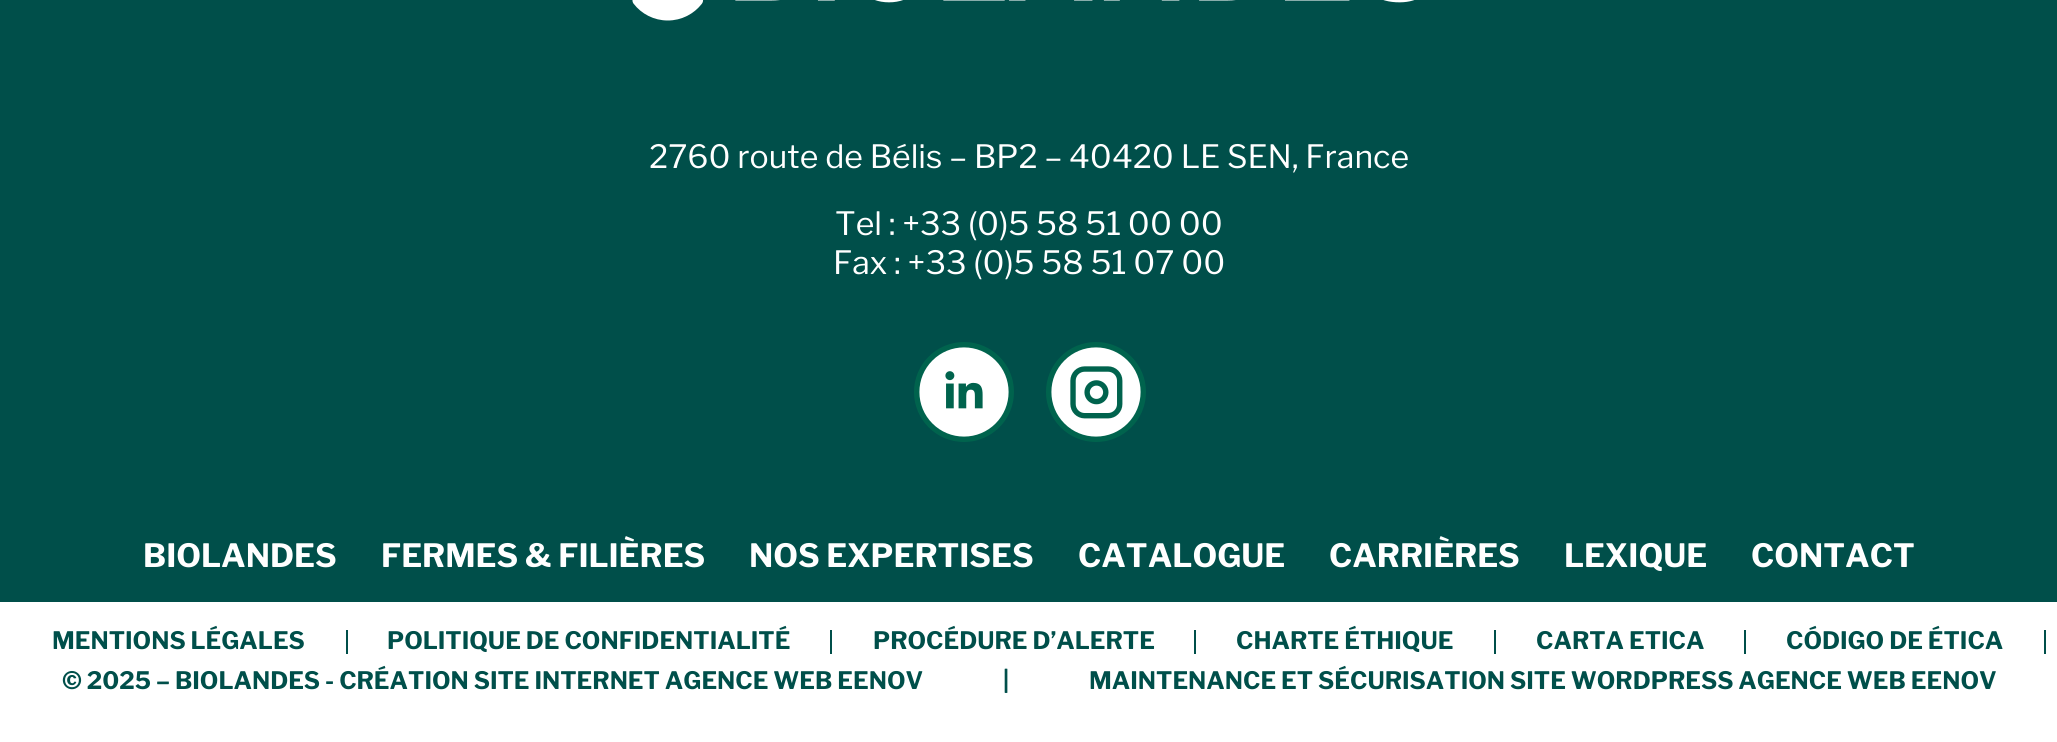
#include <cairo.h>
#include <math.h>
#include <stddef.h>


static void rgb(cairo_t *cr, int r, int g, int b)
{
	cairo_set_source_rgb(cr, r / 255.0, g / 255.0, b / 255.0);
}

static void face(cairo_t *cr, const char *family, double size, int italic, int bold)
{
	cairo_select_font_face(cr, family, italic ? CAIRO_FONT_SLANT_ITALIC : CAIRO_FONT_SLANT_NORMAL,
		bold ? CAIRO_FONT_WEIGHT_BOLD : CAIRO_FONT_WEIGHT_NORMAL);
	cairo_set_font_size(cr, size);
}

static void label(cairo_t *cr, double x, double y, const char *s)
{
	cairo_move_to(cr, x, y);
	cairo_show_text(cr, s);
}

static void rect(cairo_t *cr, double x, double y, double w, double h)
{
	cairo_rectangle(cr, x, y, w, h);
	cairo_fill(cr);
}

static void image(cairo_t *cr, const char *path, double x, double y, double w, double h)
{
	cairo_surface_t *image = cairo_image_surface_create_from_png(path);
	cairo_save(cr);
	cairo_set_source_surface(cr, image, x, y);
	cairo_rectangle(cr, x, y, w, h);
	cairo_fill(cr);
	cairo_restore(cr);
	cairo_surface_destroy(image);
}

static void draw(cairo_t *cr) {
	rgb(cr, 0, 79, 74);
	cairo_paint(cr);
	image(cr, "image0.png", 632, 0, 783, 21);
	face(cr, "Libre Franklin Thin", 32, 0, 0);
	rgb(cr, 255, 255, 255);
	label(cr, 649, 168, "2760 route de Bélis – BP2 – 40420 LE SEN, France");
	label(cr, 835, 235, "Tel : +33 (0)5 58 51 00 00");
	label(cr, 833, 274, "Fax : +33 (0)5 58 51 07 00");
	image(cr, "image1.png", 914, 342, 100, 100);
	image(cr, "image2.png", 1046, 342, 100, 100);
	face(cr, "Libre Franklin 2 Thin", 32, 0, 0);
	label(cr, 143, 567, "BIOLANDES");
	label(cr, 381, 567, "FERMES & FILIÈRES");
	label(cr, 749, 567, "NOS EXPERTISES");
	label(cr, 1078, 567, "CATALOGUE");
	label(cr, 1329, 567, "CARRIÈRES");
	label(cr, 1564, 567, "LEXIQUE");
	label(cr, 1751, 567, "CONTACT");
	rect(cr, 0, 602, 2057, 140);
	face(cr, "Libre Franklin 2 Thin", 24, 0, 0);
	rgb(cr, 0, 79, 74);
	label(cr, 52, 649, "MENTIONS LÉGALES");
	rect(cr, 346, 630, 2, 24);
	label(cr, 387, 649, "POLITIQUE DE CONFIDENTIALITÉ");
	rect(cr, 830, 630, 2, 24);
	label(cr, 873, 649, "PROCÉDURE D’ALERTE");
	rect(cr, 1194, 630, 2, 24);
	label(cr, 1236, 649, "CHARTE ÉTHIQUE");
	rect(cr, 1494, 630, 2, 24);
	label(cr, 1536, 649, "CARTA ETICA");
	rect(cr, 1744, 630, 2, 24);
	label(cr, 1786, 649, "CÓDIGO DE ÉTICA");
	rect(cr, 2044, 630, 2, 24);
	label(cr, 62, 689, "© 2025 – BIOLANDES - CRÉATION SITE INTERNET AGENCE WEB EENOV");
	label(cr, 1003, 689, "|");
	label(cr, 1089, 689, "MAINTENANCE ET SÉCURISATION SITE WORDPRESS AGENCE WEB EENOV");
}

int main(void) {
	cairo_surface_t *surface = cairo_image_surface_create(CAIRO_FORMAT_RGB24, 2057, 742);
	cairo_t *cr = cairo_create(surface);
	cairo_font_options_t *options = cairo_font_options_create();
	cairo_font_options_set_hint_metrics(options, CAIRO_HINT_METRICS_OFF);
	cairo_font_options_set_hint_style(options, CAIRO_HINT_STYLE_NONE);
	cairo_set_font_options(cr, options);
	cairo_set_miter_limit(cr, 4);
	draw(cr);
	cairo_surface_write_to_png(surface, "render.png");
	cairo_font_options_destroy(options);
	cairo_destroy(cr);
	cairo_surface_destroy(surface);
	return 0;
}
